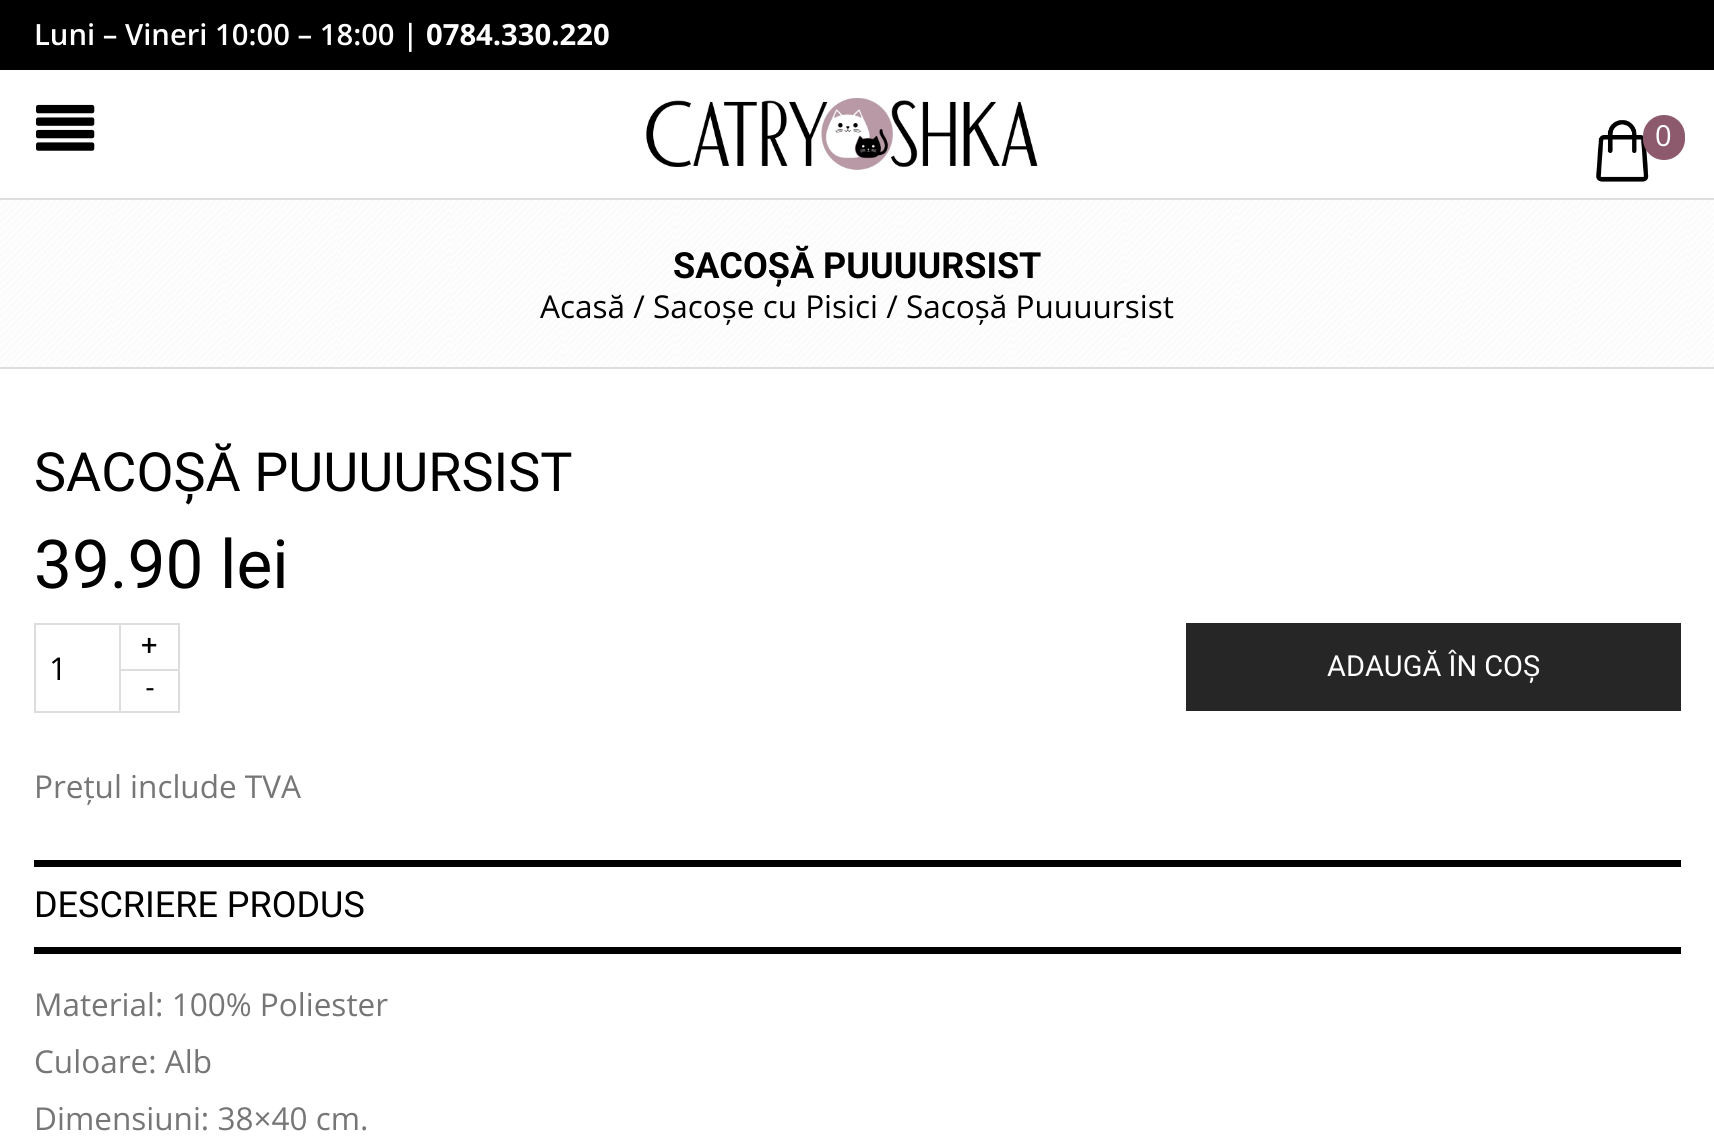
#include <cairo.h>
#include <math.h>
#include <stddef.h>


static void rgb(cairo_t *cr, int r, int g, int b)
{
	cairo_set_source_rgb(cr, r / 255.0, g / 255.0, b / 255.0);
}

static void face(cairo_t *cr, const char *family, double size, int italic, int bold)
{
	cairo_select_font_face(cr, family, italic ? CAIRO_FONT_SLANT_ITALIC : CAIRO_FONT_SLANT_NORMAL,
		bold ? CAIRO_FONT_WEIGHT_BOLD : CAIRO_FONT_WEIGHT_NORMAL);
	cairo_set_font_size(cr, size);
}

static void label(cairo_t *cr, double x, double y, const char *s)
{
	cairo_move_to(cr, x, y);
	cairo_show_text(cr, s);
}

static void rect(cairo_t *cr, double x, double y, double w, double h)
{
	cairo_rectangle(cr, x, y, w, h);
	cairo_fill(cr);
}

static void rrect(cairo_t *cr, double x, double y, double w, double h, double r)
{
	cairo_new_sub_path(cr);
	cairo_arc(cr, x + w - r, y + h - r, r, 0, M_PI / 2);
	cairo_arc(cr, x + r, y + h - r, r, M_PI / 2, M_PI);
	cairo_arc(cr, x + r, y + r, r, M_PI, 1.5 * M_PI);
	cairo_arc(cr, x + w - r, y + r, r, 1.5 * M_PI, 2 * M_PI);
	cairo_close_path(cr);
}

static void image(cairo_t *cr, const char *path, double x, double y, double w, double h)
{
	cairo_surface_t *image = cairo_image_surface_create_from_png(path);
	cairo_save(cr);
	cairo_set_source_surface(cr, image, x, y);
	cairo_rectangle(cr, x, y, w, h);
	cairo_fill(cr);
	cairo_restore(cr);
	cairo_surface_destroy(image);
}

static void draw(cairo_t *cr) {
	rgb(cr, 255, 255, 255);
	cairo_paint(cr);
	rgb(cr, 0, 0, 0);
	rect(cr, 0, 0, 1714, 70);
	face(cr, "Open Sans SemiBold", 29.25, 0, 0);
	rgb(cr, 255, 255, 255);
	label(cr, 34, 45, "Luni – Vineri 10:00 – 18:00 |");
	face(cr, "Open Sans", 29.25, 0, 1);
	label(cr, 426, 45, "0784.330.220");
	image(cr, "image0.png", 36, 104, 59, 47);
	image(cr, "image1.png", 646, 98, 392, 72);
	image(cr, "image2.png", 1596, 120, 53, 62);
	rgb(cr, 140, 89, 109);
	rrect(cr, 1643, 115, 42, 45, 21);
	cairo_fill(cr);
	face(cr, "Open Sans", 29, 0, 0);
	rgb(cr, 255, 255, 255);
	label(cr, 1655, 146, "0");
	image(cr, "image3.png", 0, 200, 1714, 167);
	rgb(cr, 221, 221, 221);
	rect(cr, 0, 198, 1714, 2);
	rect(cr, 0, 367, 1714, 2);
	face(cr, "Roboto", 36, 0, 1);
	rgb(cr, 0, 0, 0);
	label(cr, 673, 278, "SACOȘĂ PUUUURSIST");
	face(cr, "Open Sans", 31.5, 0, 0);
	label(cr, 540, 318, "Acasă / Sacoșe cu Pisici / Sacoșă Puuuursist");
	face(cr, "Roboto", 54, 0, 0);
	label(cr, 34, 491, "SACOȘĂ PUUUURSIST");
	face(cr, "Roboto", 67.5, 0, 0);
	label(cr, 34, 588, "39.90 lei");
	cairo_rectangle(cr, 35, 624, 88, 88);
	rgb(cr, 221, 221, 221);
	cairo_stroke(cr);
	rgb(cr, 255, 255, 255);
	rect(cr, 122, 671, 2, 40);
	cairo_rectangle(cr, 120, 667, 59, 45);
	rgb(cr, 221, 221, 221);
	cairo_stroke(cr);
	rgb(cr, 255, 255, 255);
	cairo_rectangle(cr, 120, 624, 59, 46);
	cairo_fill_preserve(cr);
	rgb(cr, 221, 221, 221);
	cairo_stroke(cr);
	face(cr, "Roboto", 29, 0, 0);
	rgb(cr, 0, 0, 0);
	label(cr, 141, 655, "+");
	face(cr, "Open Sans", 31.5, 0, 0);
	label(cr, 49, 680, "1");
	face(cr, "Roboto", 29, 0, 0);
	label(cr, 146, 698, "-");
	rgb(cr, 38, 38, 38);
	rect(cr, 1186, 623, 495, 88);
	rgb(cr, 255, 255, 255);
	label(cr, 1327, 676, "ADAUGĂ ÎN COȘ");
	face(cr, "Open Sans", 31.5, 0, 0);
	rgb(cr, 118, 118, 118);
	label(cr, 34, 798, "Prețul include TVA");
	rgb(cr, 0, 0, 0);
	rect(cr, 34, 860, 1647, 7);
	rect(cr, 34, 947, 1647, 7);
	face(cr, "Roboto", 36, 0, 0);
	label(cr, 34, 917, "DESCRIERE PRODUS");
	face(cr, "Open Sans", 31.5, 0, 0);
	rgb(cr, 118, 118, 118);
	label(cr, 34, 1016, "Material: 100% Poliester");
	label(cr, 34, 1073, "Culoare: Alb");
	label(cr, 34, 1130, "Dimensiuni: 38×40 cm.");
}

int main(void) {
	cairo_surface_t *surface = cairo_image_surface_create(CAIRO_FORMAT_RGB24, 1714, 1148);
	cairo_t *cr = cairo_create(surface);
	cairo_font_options_t *options = cairo_font_options_create();
	cairo_font_options_set_hint_metrics(options, CAIRO_HINT_METRICS_OFF);
	cairo_font_options_set_hint_style(options, CAIRO_HINT_STYLE_NONE);
	cairo_set_font_options(cr, options);
	cairo_set_miter_limit(cr, 4);
	draw(cr);
	cairo_surface_write_to_png(surface, "render.png");
	cairo_font_options_destroy(options);
	cairo_destroy(cr);
	cairo_surface_destroy(surface);
	return 0;
}
